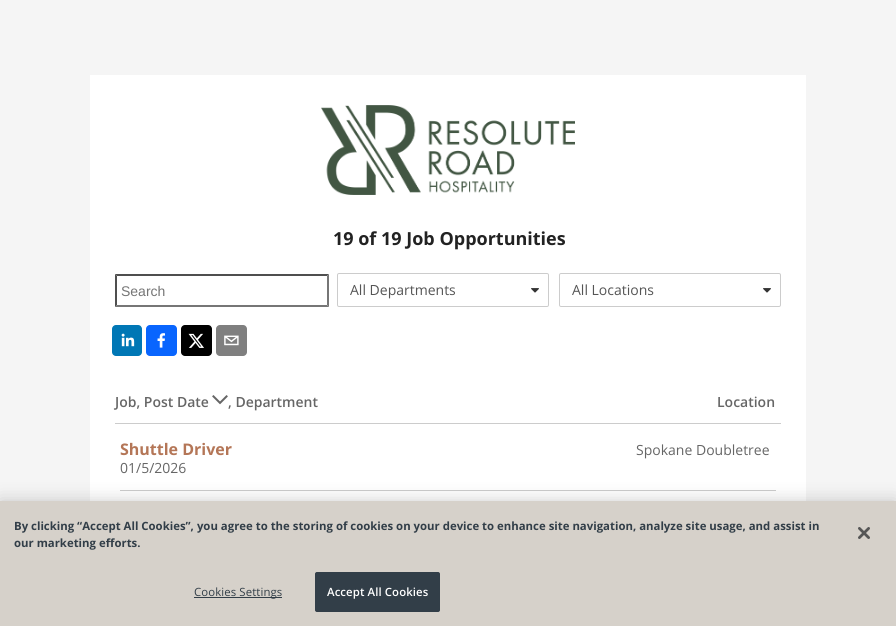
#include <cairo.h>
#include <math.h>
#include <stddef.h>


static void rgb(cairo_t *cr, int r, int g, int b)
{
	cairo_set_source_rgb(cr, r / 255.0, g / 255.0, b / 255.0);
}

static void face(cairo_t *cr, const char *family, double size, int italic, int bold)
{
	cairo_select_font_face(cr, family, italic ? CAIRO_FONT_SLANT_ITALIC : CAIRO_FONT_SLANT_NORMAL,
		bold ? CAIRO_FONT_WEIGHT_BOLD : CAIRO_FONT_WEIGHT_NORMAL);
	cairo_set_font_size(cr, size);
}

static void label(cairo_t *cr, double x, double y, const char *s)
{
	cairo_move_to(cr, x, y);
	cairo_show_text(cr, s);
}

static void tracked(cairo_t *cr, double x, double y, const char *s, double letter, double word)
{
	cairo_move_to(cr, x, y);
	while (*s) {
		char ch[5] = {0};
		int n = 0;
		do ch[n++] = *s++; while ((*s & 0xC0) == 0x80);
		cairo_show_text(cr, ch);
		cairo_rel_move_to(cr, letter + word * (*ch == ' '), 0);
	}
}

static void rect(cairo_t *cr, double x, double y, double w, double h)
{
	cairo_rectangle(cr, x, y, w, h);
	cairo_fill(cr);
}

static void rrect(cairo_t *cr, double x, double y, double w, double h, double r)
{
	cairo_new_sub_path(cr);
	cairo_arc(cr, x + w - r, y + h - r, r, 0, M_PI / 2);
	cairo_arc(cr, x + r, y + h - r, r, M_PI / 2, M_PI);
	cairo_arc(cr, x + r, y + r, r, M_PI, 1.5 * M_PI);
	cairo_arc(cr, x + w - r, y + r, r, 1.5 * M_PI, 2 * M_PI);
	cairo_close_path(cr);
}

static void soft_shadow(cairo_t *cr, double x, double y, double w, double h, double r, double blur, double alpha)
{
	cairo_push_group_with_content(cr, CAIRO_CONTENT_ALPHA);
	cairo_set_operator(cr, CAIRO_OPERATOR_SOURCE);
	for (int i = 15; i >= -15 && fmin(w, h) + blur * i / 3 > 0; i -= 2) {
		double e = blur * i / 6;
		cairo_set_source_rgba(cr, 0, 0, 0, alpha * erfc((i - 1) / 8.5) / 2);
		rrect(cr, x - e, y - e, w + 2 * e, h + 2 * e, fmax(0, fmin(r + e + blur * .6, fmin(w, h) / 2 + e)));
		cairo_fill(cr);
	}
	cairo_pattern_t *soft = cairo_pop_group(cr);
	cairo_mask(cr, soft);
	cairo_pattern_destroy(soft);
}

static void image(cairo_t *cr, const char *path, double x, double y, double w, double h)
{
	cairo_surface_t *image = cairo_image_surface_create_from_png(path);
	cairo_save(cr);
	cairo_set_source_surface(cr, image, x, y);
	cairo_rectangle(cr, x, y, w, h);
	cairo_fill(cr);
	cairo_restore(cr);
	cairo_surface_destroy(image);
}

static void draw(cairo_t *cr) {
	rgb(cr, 245, 245, 245);
	cairo_paint(cr);
	rgb(cr, 255, 255, 255);
	rect(cr, 90, 75, 716, 426);
	image(cr, "image0.png", 321, 105, 254, 90);
	face(cr, "Open Sans", 18, 0, 1);
	rgb(cr, 34, 34, 34);
	label(cr, 333, 245, "19 of 19 Job Opportunities");
	rgb(cr, 79, 79, 79);
	cairo_new_path(cr);
	cairo_move_to(cr, 115, 274);
	cairo_line_to(cr, 329, 274);
	cairo_line_to(cr, 327, 276);
	cairo_line_to(cr, 117, 276);
	cairo_close_path(cr);
	cairo_fill(cr);
	rgb(cr, 118, 118, 118);
	cairo_new_path(cr);
	cairo_move_to(cr, 329, 274);
	cairo_line_to(cr, 329, 307);
	cairo_line_to(cr, 327, 305);
	cairo_line_to(cr, 327, 276);
	cairo_close_path(cr);
	cairo_fill(cr);
	cairo_new_path(cr);
	cairo_move_to(cr, 329, 307);
	cairo_line_to(cr, 115, 307);
	cairo_line_to(cr, 117, 305);
	cairo_line_to(cr, 327, 305);
	cairo_close_path(cr);
	cairo_fill(cr);
	rgb(cr, 79, 79, 79);
	cairo_new_path(cr);
	cairo_move_to(cr, 115, 307);
	cairo_line_to(cr, 115, 274);
	cairo_line_to(cr, 117, 276);
	cairo_line_to(cr, 117, 305);
	cairo_close_path(cr);
	cairo_fill(cr);
	face(cr, "Liberation Sans", 14, 0, 0);
	rgb(cr, 117, 117, 117);
	label(cr, 121, 296, "Search");
	rrect(cr, 337.5, 273.5, 211, 33, 1.5);
	rgb(cr, 204, 204, 204);
	cairo_set_line_width(cr, 1);
	cairo_stroke(cr);
	face(cr, "Open Sans", 14, 0, 0);
	rgb(cr, 85, 85, 85);
	label(cr, 350, 295, "All Departments");
	image(cr, "image1.png", 531, 288, 8, 5);
	rrect(cr, 559.5, 273.5, 221, 33, 1.5);
	rgb(cr, 204, 204, 204);
	cairo_stroke(cr);
	rgb(cr, 85, 85, 85);
	label(cr, 572, 295, "All Locations");
	image(cr, "image1.png", 763, 288, 8, 5);
	image(cr, "image2.png", 112, 325, 30, 31);
	image(cr, "image3.png", 146, 325, 31, 31);
	image(cr, "image4.png", 181, 325, 31, 31);
	image(cr, "image5.png", 216, 325, 31, 31);
	rgb(cr, 204, 204, 204);
	rect(cr, 115, 423, 666, 1);
	face(cr, "Open Sans SemiBold", 14, 0, 0);
	rgb(cr, 102, 102, 102);
	label(cr, 115, 407, "Job, Post Date");
	image(cr, "image6.png", 212, 395, 16, 10);
	label(cr, 228, 407, ", Department");
	label(cr, 717, 407, "Location");
	rgb(cr, 204, 204, 204);
	rect(cr, 120, 490, 656, 1);
	face(cr, "Open Sans", 16, 0, 1);
	rgb(cr, 180, 118, 87);
	label(cr, 120, 455, "Shuttle Driver");
	face(cr, "Open Sans", 14, 0, 0);
	rgb(cr, 102, 102, 102);
	label(cr, 120, 473, "01/5/2026");
	label(cr, 636, 455, "Spokane Doubletree");
	rgb(cr, 0, 0, 0);
	soft_shadow(cr, 0, 501, 896, 125, 0, 9, 0.2);
	rgb(cr, 214, 209, 202);
	rect(cr, 0, 501, 896, 125);
	face(cr, "Open Sans", 11.38, 0, 1);
	rgb(cr, 50, 62, 72);
	label(cr, 14, 530, "By clicking “Accept All Cookies”, you agree to the storing of cookies on your device to enhance site navigation, analyze site usage, and assist in");
	label(cr, 14, 547, "our marketing efforts.");
	rect(cr, 194, 597, 88, 1);
	face(cr, "Open Sans", 11.38, 0, 0);
	tracked(cr, 194, 596, "Cookies Settings", 0.1, 0);
	rrect(cr, 315.5, 572.5, 124, 39, 1.5);
	cairo_fill_preserve(cr);
	cairo_stroke(cr);
	face(cr, "Open Sans SemiBold", 11.38, 0, 0);
	rgb(cr, 255, 255, 255);
	tracked(cr, 327, 596, "Accept All Cookies", 0.1, 0);
	image(cr, "image7.png", 858, 527, 12, 12);
}

int main(void) {
	cairo_surface_t *surface = cairo_image_surface_create(CAIRO_FORMAT_RGB24, 896, 626);
	cairo_t *cr = cairo_create(surface);
	cairo_font_options_t *options = cairo_font_options_create();
	cairo_font_options_set_hint_metrics(options, CAIRO_HINT_METRICS_OFF);
	cairo_font_options_set_hint_style(options, CAIRO_HINT_STYLE_NONE);
	cairo_set_font_options(cr, options);
	cairo_set_miter_limit(cr, 4);
	draw(cr);
	cairo_surface_write_to_png(surface, "render.png");
	cairo_font_options_destroy(options);
	cairo_destroy(cr);
	cairo_surface_destroy(surface);
	return 0;
}
